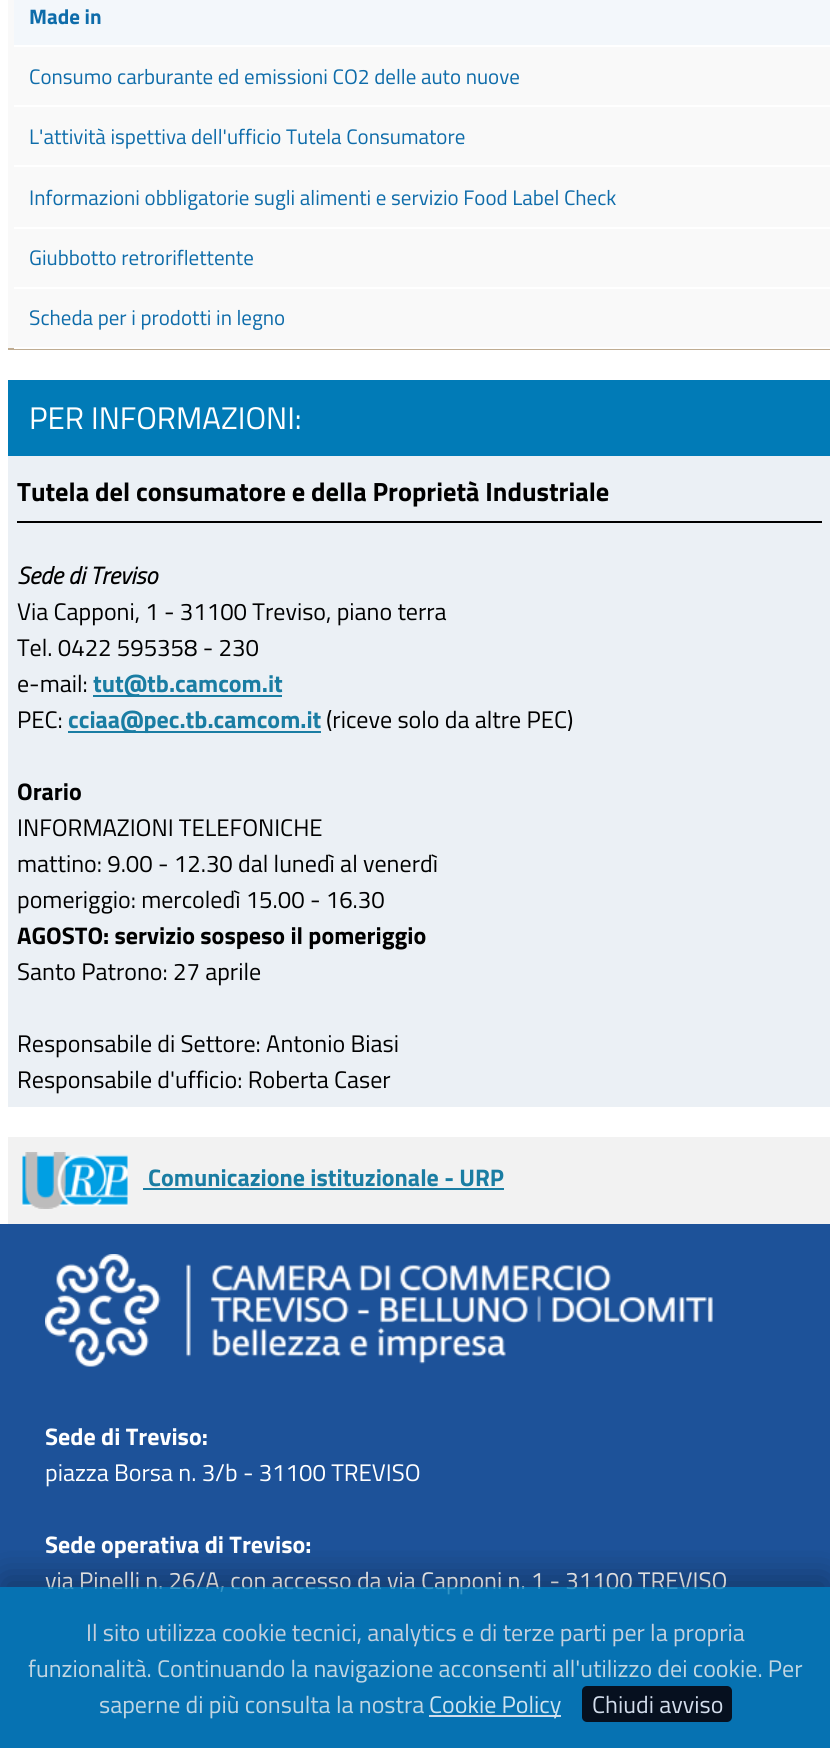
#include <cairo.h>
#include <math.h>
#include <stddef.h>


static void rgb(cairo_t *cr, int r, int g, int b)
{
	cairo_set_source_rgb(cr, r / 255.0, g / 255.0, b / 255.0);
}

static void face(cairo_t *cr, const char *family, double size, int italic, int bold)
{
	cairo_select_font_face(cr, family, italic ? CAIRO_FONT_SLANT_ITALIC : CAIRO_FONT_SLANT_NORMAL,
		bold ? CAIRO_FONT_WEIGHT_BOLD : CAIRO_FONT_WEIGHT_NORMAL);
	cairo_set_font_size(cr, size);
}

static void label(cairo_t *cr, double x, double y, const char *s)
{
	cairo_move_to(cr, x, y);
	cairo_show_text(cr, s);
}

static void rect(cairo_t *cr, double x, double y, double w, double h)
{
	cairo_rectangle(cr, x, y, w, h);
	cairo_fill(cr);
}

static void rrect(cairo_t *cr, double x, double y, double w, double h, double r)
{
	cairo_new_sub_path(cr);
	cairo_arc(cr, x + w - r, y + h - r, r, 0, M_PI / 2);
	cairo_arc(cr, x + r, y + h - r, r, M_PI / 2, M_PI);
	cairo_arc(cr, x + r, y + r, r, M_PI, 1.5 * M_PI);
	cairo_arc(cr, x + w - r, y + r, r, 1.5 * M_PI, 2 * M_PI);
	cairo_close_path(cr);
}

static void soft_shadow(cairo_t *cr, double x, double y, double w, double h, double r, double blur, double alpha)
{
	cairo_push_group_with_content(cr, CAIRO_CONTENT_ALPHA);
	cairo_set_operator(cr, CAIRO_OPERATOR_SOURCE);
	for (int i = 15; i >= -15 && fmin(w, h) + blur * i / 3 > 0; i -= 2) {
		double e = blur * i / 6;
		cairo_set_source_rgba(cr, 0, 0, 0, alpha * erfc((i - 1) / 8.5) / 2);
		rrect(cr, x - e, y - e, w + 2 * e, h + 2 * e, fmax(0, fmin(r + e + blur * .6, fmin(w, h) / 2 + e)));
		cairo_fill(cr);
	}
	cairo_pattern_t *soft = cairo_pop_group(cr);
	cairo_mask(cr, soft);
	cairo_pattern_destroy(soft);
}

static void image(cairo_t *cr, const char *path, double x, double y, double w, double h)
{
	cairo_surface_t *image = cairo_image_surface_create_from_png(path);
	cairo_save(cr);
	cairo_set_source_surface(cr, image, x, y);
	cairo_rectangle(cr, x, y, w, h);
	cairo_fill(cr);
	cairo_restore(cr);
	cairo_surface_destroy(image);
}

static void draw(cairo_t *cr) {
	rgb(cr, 255, 255, 255);
	cairo_paint(cr);
	rgb(cr, 249, 249, 249);
	rect(cr, 8, 0, 822, 348);
	rgb(cr, 191, 172, 146);
	rect(cr, 8, 348, 822, 2);
	rgb(cr, 243, 247, 251);
	rect(cr, 14, 0, 816, 45);
	rgb(cr, 255, 255, 255);
	rect(cr, 14, 45, 816, 2);
	face(cr, "Titillium Web", 21, 0, 1);
	rgb(cr, 14, 108, 170);
	label(cr, 29, 24, "Made in");
	rgb(cr, 255, 255, 255);
	rect(cr, 14, 105, 816, 2);
	face(cr, "Titillium Web", 21, 0, 0);
	rgb(cr, 14, 108, 170);
	label(cr, 29, 84, "Consumo carburante ed emissioni CO2 delle auto nuove");
	rgb(cr, 255, 255, 255);
	rect(cr, 14, 165, 816, 2);
	rgb(cr, 14, 108, 170);
	label(cr, 29, 144, "L'attività ispettiva dell'ufficio Tutela Consumatore");
	rgb(cr, 255, 255, 255);
	rect(cr, 14, 227, 816, 2);
	rgb(cr, 14, 108, 170);
	label(cr, 29, 205, "Informazioni obbligatorie sugli alimenti e servizio Food Label Check");
	rgb(cr, 255, 255, 255);
	rect(cr, 14, 287, 816, 2);
	rgb(cr, 14, 108, 170);
	label(cr, 29, 265, "Giubbotto retroriflettente");
	rgb(cr, 255, 255, 255);
	rect(cr, 14, 347, 816, 2);
	rgb(cr, 14, 108, 170);
	label(cr, 29, 325, "Scheda per i prodotti in legno");
	rgb(cr, 1, 123, 183);
	rect(cr, 8, 380, 822, 76);
	face(cr, "Titillium Web", 31.25, 0, 0);
	rgb(cr, 255, 255, 255);
	label(cr, 29, 429, "PER INFORMAZIONI:");
	rgb(cr, 235, 240, 245);
	rect(cr, 8, 456, 822, 651);
	rgb(cr, 0, 0, 0);
	rect(cr, 17, 521, 805, 2);
	face(cr, "Titillium Web", 26.4, 0, 1);
	label(cr, 17, 501, "Tutela del consumatore e della Proprietà Industriale");
	face(cr, "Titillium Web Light", 24, 1, 1);
	label(cr, 17, 584, "Sede di Treviso");
	face(cr, "Titillium Web", 24, 0, 0);
	label(cr, 17, 620, "Via Capponi, 1 - 31100 Treviso, piano terra");
	label(cr, 17, 656, "Tel. 0422 595358 - 230");
	label(cr, 17, 692, "e-mail:");
	rgb(cr, 26, 125, 163);
	rect(cr, 93, 695, 189, 2);
	face(cr, "Titillium Web", 24, 0, 1);
	label(cr, 93, 692, "tut@tb.camcom.it");
	face(cr, "Titillium Web", 24, 0, 0);
	rgb(cr, 0, 0, 0);
	label(cr, 17, 728, "PEC:");
	rgb(cr, 26, 125, 163);
	rect(cr, 68, 731, 253, 2);
	face(cr, "Titillium Web", 24, 0, 1);
	label(cr, 68, 728, "cciaa@pec.tb.camcom.it");
	face(cr, "Titillium Web", 24, 0, 0);
	rgb(cr, 0, 0, 0);
	label(cr, 326, 728, "(riceve solo da altre PEC)");
	face(cr, "Titillium Web", 24, 0, 1);
	label(cr, 17, 800, "Orario");
	face(cr, "Titillium Web", 24, 0, 0);
	label(cr, 17, 836, "INFORMAZIONI TELEFONICHE");
	label(cr, 17, 872, "mattino: 9.00 - 12.30 dal lunedì al venerdì");
	label(cr, 17, 908, "pomeriggio: mercoledì 15.00 - 16.30");
	face(cr, "Titillium Web", 24, 0, 1);
	label(cr, 17, 944, "AGOSTO: servizio sospeso il pomeriggio");
	face(cr, "Titillium Web", 24, 0, 0);
	label(cr, 17, 980, "Santo Patrono: 27 aprile");
	label(cr, 17, 1052, "Responsabile di Settore: Antonio Biasi");
	label(cr, 17, 1088, "Responsabile d'ufficio: Roberta Caser");
	rgb(cr, 242, 242, 242);
	rect(cr, 8, 1137, 822, 87);
	image(cr, "image0.png", 22, 1152, 106, 57);
	face(cr, "Titillium Web", 24, 0, 1);
	rgb(cr, 26, 125, 163);
	label(cr, 148, 1186, "Comunicazione istituzionale - URP");
	rect(cr, 143, 1188, 361, 2);
	rgb(cr, 29, 82, 153);
	rect(cr, 0, 1224, 830, 524);
	image(cr, "image1.png", 45, 1254, 668, 113);
	rgb(cr, 255, 255, 255);
	label(cr, 45, 1445, "Sede di Treviso:");
	face(cr, "Titillium Web", 24, 0, 0);
	label(cr, 45, 1481, "piazza Borsa n. 3/b - 31100 TREVISO");
	face(cr, "Titillium Web", 24, 0, 1);
	label(cr, 45, 1553, "Sede operativa di Treviso:");
	face(cr, "Titillium Web", 24, 0, 0);
	label(cr, 45, 1589, "via Pinelli n. 26/A, con accesso da via Capponi n. 1 - 31100 TREVISO");
	cairo_save(cr);
	cairo_rectangle(cr, 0, 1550, 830, 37);
	cairo_clip(cr);
	rgb(cr, 0, 0, 0);
	soft_shadow(cr, 3, 1578, 825, 156, 0, 18, 0.32);
	cairo_restore(cr);
	cairo_set_source_rgba(cr, 0.004, 0.482, 0.718, 0.8);
	rect(cr, 0, 1587, 830, 161);
	rgb(cr, 196, 207, 221);
	label(cr, 86, 1641, "Il sito utilizza cookie tecnici, analytics e di terze parti per la propria");
	rgb(cr, 192, 213, 226);
	label(cr, 28, 1677, "funzionalità. Continuando la navigazione acconsenti all'utilizzo dei cookie. Per");
	label(cr, 99, 1713, "saperne di più consulta la nostra");
	rgb(cr, 210, 220, 235);
	rect(cr, 429, 1715, 132, 2);
	rgb(cr, 206, 227, 240);
	label(cr, 429, 1713, "Cookie Policy");
	rgb(cr, 6, 16, 31);
	rrect(cr, 582, 1686, 150, 36, 5);
	cairo_fill(cr);
	rgb(cr, 210, 220, 235);
	label(cr, 592, 1713, "Chiudi avviso");
}

int main(void) {
	cairo_surface_t *surface = cairo_image_surface_create(CAIRO_FORMAT_RGB24, 830, 1748);
	cairo_t *cr = cairo_create(surface);
	cairo_font_options_t *options = cairo_font_options_create();
	cairo_font_options_set_hint_metrics(options, CAIRO_HINT_METRICS_OFF);
	cairo_font_options_set_hint_style(options, CAIRO_HINT_STYLE_NONE);
	cairo_set_font_options(cr, options);
	cairo_set_miter_limit(cr, 4);
	draw(cr);
	cairo_surface_write_to_png(surface, "render.png");
	cairo_font_options_destroy(options);
	cairo_destroy(cr);
	cairo_surface_destroy(surface);
	return 0;
}
